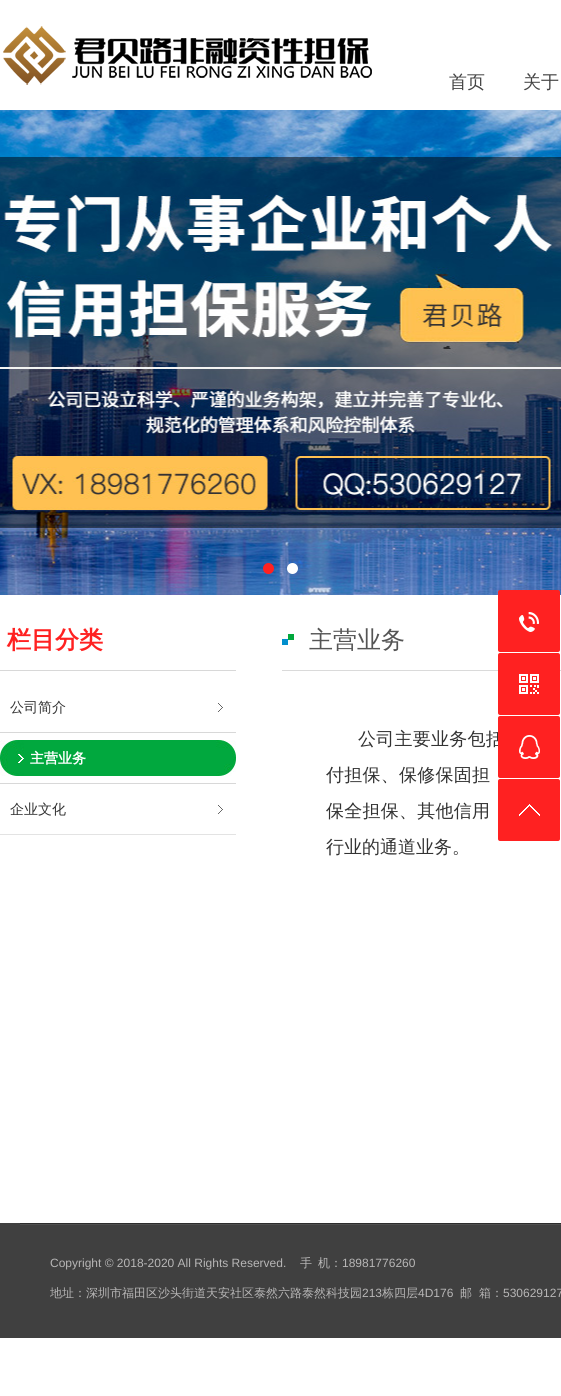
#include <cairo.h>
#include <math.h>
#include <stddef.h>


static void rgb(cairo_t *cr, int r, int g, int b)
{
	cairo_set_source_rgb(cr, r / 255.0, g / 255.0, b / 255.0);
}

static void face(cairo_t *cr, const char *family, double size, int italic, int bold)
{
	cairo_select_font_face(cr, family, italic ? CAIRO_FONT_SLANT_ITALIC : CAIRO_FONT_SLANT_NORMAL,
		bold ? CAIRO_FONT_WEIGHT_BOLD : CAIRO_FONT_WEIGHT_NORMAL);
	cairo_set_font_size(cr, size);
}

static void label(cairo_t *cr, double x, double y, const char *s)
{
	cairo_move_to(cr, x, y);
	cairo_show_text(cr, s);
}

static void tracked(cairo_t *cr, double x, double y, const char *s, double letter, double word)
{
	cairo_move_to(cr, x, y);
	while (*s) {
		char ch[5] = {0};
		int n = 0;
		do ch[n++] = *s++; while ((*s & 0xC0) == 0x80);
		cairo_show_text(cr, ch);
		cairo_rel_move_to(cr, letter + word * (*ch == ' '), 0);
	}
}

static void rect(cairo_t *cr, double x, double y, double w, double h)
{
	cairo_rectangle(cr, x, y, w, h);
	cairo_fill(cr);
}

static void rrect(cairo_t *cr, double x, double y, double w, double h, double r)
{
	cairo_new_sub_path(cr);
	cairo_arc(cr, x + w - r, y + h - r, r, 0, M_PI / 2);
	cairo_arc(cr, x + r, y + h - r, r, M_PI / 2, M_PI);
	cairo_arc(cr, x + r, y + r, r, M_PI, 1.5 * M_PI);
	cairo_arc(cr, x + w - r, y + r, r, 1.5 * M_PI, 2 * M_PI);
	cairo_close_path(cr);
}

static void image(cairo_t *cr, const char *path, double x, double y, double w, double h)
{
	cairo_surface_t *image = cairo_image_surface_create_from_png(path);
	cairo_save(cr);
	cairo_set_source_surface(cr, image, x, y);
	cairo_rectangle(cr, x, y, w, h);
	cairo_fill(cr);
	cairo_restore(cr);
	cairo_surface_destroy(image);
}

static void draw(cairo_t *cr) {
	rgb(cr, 255, 255, 255);
	cairo_paint(cr);
	image(cr, "image0.png", 3, 26, 369, 59);
	face(cr, "WenQuanYi Zen Hei Medium", 18, 0, 0);
	rgb(cr, 68, 68, 68);
	label(cr, 449, 88, "首页");
	label(cr, 523, 88, "关于");
	image(cr, "image1.png", 0, 110, 561, 485);
	rgb(cr, 255, 33, 33);
	cairo_arc(cr, 268.5, 568.5, 5.5, 0, 2 * M_PI);
	cairo_fill(cr);
	rgb(cr, 255, 255, 255);
	cairo_arc(cr, 292.5, 568.5, 5.5, 0, 2 * M_PI);
	cairo_fill(cr);
	rgb(cr, 227, 227, 227);
	rect(cr, 0, 834, 236, 1);
	rgb(cr, 216, 216, 216);
	rect(cr, 0, 670, 236, 1);
	face(cr, "WenQuanYi Zen Hei", 24, 0, 1);
	rgb(cr, 255, 33, 33);
	label(cr, 7, 648, "栏目分类");
	image(cr, "image2.png", 216, 703, 7, 9);
	face(cr, "WenQuanYi Zen Hei Medium", 14, 0, 0);
	rgb(cr, 51, 51, 51);
	label(cr, 10, 712, "公司简介");
	image(cr, "image3.png", 0, 740, 236, 36);
	rgb(cr, 216, 216, 216);
	rect(cr, 0, 732, 236, 1);
	face(cr, "WenQuanYi Zen Hei", 14, 0, 1);
	rgb(cr, 255, 255, 255);
	label(cr, 30, 763, "主营业务");
	image(cr, "image2.png", 216, 805, 7, 9);
	rgb(cr, 216, 216, 216);
	rect(cr, 0, 783, 236, 1);
	face(cr, "WenQuanYi Zen Hei Medium", 14, 0, 0);
	rgb(cr, 51, 51, 51);
	label(cr, 10, 814, "企业文化");
	image(cr, "image4.png", 282, 634, 12, 11);
	rgb(cr, 218, 218, 218);
	rect(cr, 282, 670, 279, 1);
	face(cr, "WenQuanYi Zen Hei Medium", 24, 0, 0);
	rgb(cr, 85, 85, 85);
	label(cr, 309, 648, "主营业务");
	face(cr, "WenQuanYi Zen Hei Medium", 18, 0, 0);
	rgb(cr, 51, 51, 51);
	tracked(cr, 358, 745, "公司主要业务包括", 0.25, 0);
	tracked(cr, 326, 781, "付担保、保修保固担", 0.25, 0);
	tracked(cr, 326, 817, "保全担保、其他信用", 0.25, 0);
	label(cr, 326, 853, "行业的通道业务。");
	rgb(cr, 255, 33, 33);
	rrect(cr, 498, 590, 62, 62, 2);
	cairo_fill(cr);
	image(cr, "image5.png", 519, 612, 20, 20);
	rrect(cr, 498, 653, 62, 62, 2);
	cairo_fill(cr);
	image(cr, "image6.png", 519, 674, 20, 20);
	rrect(cr, 498, 716, 62, 62, 2);
	cairo_fill(cr);
	image(cr, "image7.png", 519, 735, 21, 24);
	rrect(cr, 498, 779, 62, 62, 2);
	cairo_fill(cr);
	image(cr, "image8.png", 519, 804, 21, 12);
	rgb(cr, 64, 64, 64);
	rect(cr, 0, 1223, 561, 115);
	image(cr, "image9.png", 20, 1223, 541, 2);
	face(cr, "Liberation Sans", 12, 0, 0);
	rgb(cr, 183, 182, 182);
	label(cr, 50, 1267, "Copyright © 2018-2020 All Rights Reserved.");
	face(cr, "WenQuanYi Zen Hei Medium", 12, 0, 0);
	label(cr, 300, 1267, "手");
	label(cr, 318, 1267, "机：");
	face(cr, "Liberation Sans", 12, 0, 0);
	label(cr, 342, 1267, "18981776260");
	face(cr, "WenQuanYi Zen Hei Medium", 12, 0, 0);
	label(cr, 50, 1297, "地址：深圳市福田区沙头街道天安社区泰然六路泰然科技园");
	face(cr, "Liberation Sans", 12, 0, 0);
	label(cr, 362, 1297, "213");
	face(cr, "WenQuanYi Zen Hei Medium", 12, 0, 0);
	label(cr, 382, 1297, "栋四层");
	face(cr, "Liberation Sans", 12, 0, 0);
	label(cr, 418, 1297, "4D176");
	face(cr, "WenQuanYi Zen Hei Medium", 12, 0, 0);
	label(cr, 460, 1297, "邮");
	label(cr, 479, 1297, "箱：");
	face(cr, "Liberation Sans", 12, 0, 0);
	label(cr, 503, 1297, "530629127");
}

int main(void) {
	cairo_surface_t *surface = cairo_image_surface_create(CAIRO_FORMAT_RGB24, 561, 1396);
	cairo_t *cr = cairo_create(surface);
	cairo_font_options_t *options = cairo_font_options_create();
	cairo_font_options_set_hint_metrics(options, CAIRO_HINT_METRICS_OFF);
	cairo_font_options_set_hint_style(options, CAIRO_HINT_STYLE_NONE);
	cairo_set_font_options(cr, options);
	cairo_set_miter_limit(cr, 4);
	draw(cr);
	cairo_surface_write_to_png(surface, "render.png");
	cairo_font_options_destroy(options);
	cairo_destroy(cr);
	cairo_surface_destroy(surface);
	return 0;
}
